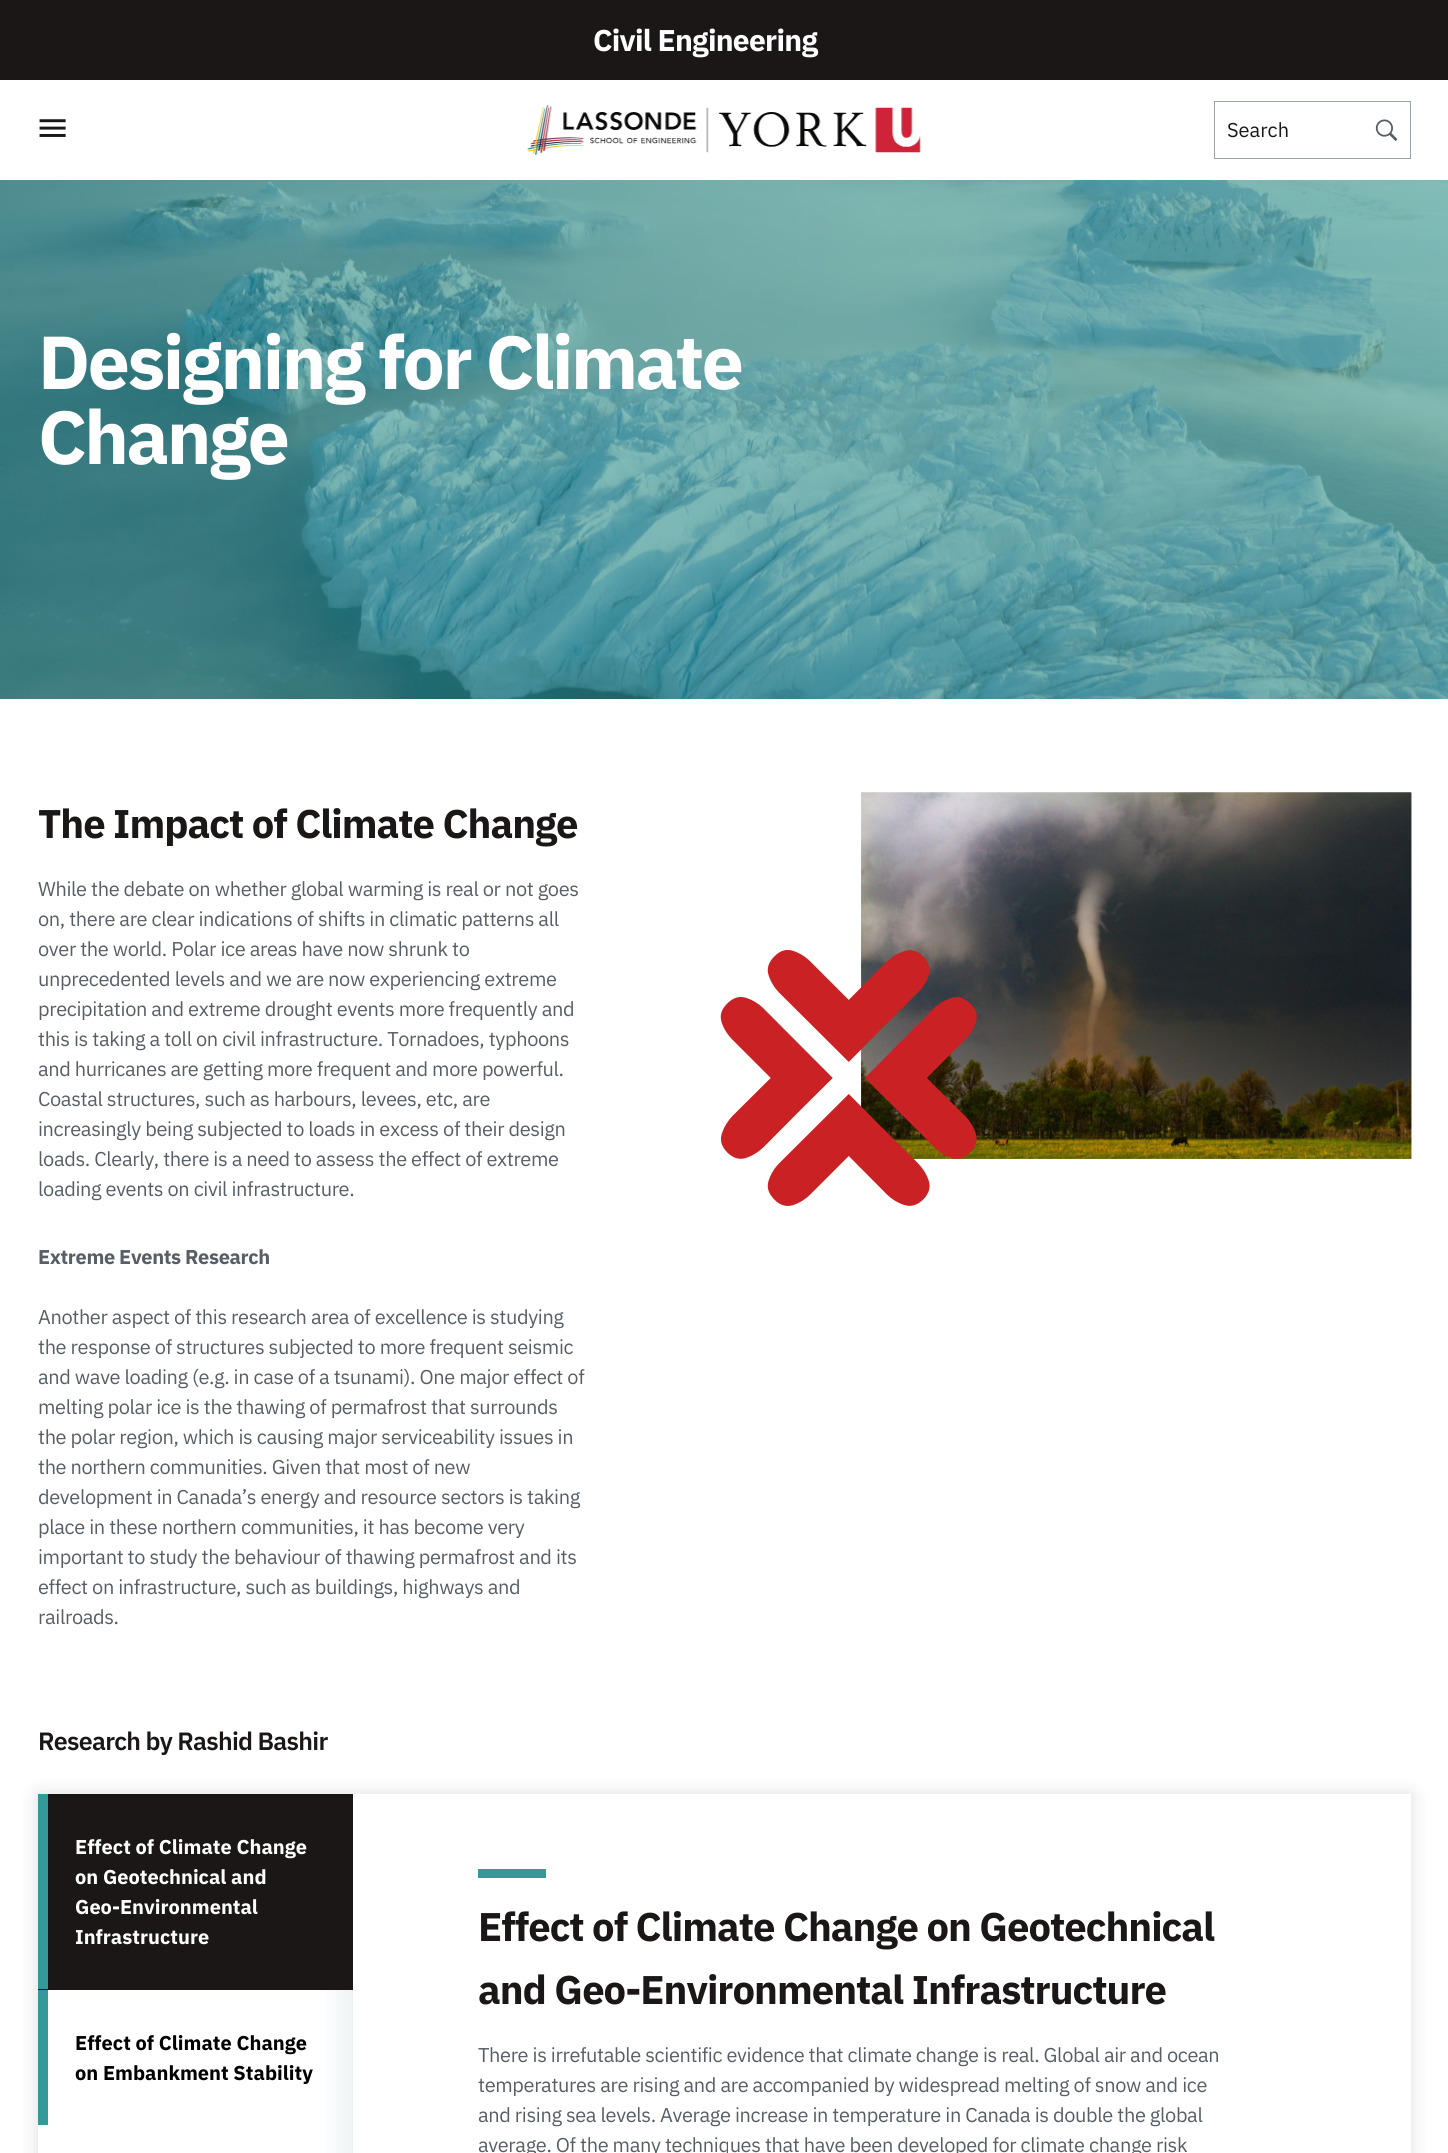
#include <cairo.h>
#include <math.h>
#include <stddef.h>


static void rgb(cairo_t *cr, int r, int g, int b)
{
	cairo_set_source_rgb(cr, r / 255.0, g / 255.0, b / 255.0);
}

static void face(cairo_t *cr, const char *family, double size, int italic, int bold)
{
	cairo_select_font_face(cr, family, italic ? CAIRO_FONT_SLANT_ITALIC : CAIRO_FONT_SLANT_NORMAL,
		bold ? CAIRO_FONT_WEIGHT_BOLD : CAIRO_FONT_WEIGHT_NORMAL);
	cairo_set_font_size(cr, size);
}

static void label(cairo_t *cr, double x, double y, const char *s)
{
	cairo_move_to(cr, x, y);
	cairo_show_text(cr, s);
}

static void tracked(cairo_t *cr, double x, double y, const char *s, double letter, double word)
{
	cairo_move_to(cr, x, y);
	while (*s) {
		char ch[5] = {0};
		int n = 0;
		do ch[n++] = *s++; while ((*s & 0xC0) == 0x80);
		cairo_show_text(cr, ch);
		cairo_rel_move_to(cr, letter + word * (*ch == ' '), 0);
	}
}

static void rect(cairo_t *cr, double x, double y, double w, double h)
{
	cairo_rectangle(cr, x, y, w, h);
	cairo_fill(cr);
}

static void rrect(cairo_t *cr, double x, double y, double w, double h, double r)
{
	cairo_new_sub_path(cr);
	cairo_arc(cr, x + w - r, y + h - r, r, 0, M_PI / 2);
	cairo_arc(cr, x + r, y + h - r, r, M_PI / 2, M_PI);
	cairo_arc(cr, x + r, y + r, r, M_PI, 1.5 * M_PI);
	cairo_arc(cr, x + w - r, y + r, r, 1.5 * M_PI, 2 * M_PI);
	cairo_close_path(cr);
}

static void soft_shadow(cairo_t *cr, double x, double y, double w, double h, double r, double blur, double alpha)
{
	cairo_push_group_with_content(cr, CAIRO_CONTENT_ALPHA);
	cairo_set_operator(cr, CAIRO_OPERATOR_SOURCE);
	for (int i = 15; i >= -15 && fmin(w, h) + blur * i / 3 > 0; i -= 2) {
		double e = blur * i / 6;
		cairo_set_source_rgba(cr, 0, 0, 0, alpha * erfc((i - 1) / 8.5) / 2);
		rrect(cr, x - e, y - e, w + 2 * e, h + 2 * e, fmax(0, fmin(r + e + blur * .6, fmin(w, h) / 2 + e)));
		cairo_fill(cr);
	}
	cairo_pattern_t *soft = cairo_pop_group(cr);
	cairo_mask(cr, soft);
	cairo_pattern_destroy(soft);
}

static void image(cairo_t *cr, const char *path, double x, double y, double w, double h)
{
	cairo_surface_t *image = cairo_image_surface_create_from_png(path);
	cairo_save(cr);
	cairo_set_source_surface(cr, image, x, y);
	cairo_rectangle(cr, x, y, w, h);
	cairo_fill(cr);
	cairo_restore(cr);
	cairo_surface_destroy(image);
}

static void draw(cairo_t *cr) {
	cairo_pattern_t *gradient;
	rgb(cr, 255, 255, 255);
	cairo_paint(cr);
	rgb(cr, 26, 23, 22);
	rect(cr, 0, 0, 1448, 80);
	face(cr, "IBM Plex Sans", 30, 0, 1);
	rgb(cr, 255, 255, 255);
	tracked(cr, 593, 51, "Civil Engineering", -0.75, 0);
	image(cr, "image0.png", 39, 119, 27, 18);
	image(cr, "image1.png", 527, 105, 394, 50);
	cairo_rectangle(cr, 1214.5, 101.5, 196, 57);
	rgb(cr, 157, 164, 174);
	cairo_set_line_width(cr, 1);
	cairo_stroke(cr);
	face(cr, "IBM Plex Sans", 20, 0, 0);
	rgb(cr, 26, 23, 22);
	label(cr, 1227, 137, "Search");
	image(cr, "image2.png", 1375, 119, 23, 22);
	rgb(cr, 51, 153, 153);
	rect(cr, 0, 180, 1448, 519);
	image(cr, "image3.png", 0, 180, 1448, 519);
	face(cr, "IBM Plex Sans", 75, 0, 1);
	rgb(cr, 255, 255, 255);
	tracked(cr, 38, 389, "Designing for Climate", -2.5, 0);
	tracked(cr, 38, 464, "Change", -2.5, 0);
	face(cr, "IBM Plex Sans", 40, 0, 1);
	rgb(cr, 26, 23, 22);
	tracked(cr, 38, 838, "The Impact of Climate Change", -1, 0);
	face(cr, "IBM Plex Sans", 20, 0, 0);
	rgb(cr, 87, 94, 102);
	tracked(cr, 38, 896, "While the debate on whether global warming is real or not goes", -0.38, 0);
	tracked(cr, 38, 926, "on, there are clear indications of shifts in climatic patterns all", -0.38, 0);
	tracked(cr, 38, 956, "over the world. Polar ice areas have now shrunk to", -0.38, 0);
	tracked(cr, 38, 986, "unprecedented levels and we are now experiencing extreme", -0.38, 0);
	tracked(cr, 38, 1016, "precipitation and extreme drought events more frequently and", -0.38, 0);
	tracked(cr, 38, 1046, "this is taking a toll on civil infrastructure. Tornadoes, typhoons", -0.38, 0);
	tracked(cr, 38, 1076, "and hurricanes are getting more frequent and more powerful.", -0.38, 0);
	tracked(cr, 38, 1106, "Coastal structures, such as harbours, levees, etc, are", -0.38, 0);
	tracked(cr, 38, 1136, "increasingly being subjected to loads in excess of their design", -0.38, 0);
	tracked(cr, 38, 1166, "loads. Clearly, there is a need to assess the effect of extreme", -0.38, 0);
	tracked(cr, 38, 1196, "loading events on civil infrastructure.", -0.38, 0);
	face(cr, "IBM Plex Sans", 20, 0, 1);
	tracked(cr, 38, 1264, "Extreme Events Research", -0.38, 0);
	face(cr, "IBM Plex Sans", 20, 0, 0);
	tracked(cr, 38, 1324, "Another aspect of this research area of excellence is studying", -0.38, 0);
	tracked(cr, 38, 1354, "the response of structures subjected to more frequent seismic", -0.38, 0);
	tracked(cr, 38, 1384, "and wave loading (e.g. in case of a tsunami). One major effect of", -0.38, 0);
	tracked(cr, 38, 1414, "melting polar ice is the thawing of permafrost that surrounds", -0.38, 0);
	tracked(cr, 38, 1444, "the polar region, which is causing major serviceability issues in", -0.38, 0);
	tracked(cr, 38, 1474, "the northern communities. Given that most of new", -0.38, 0);
	tracked(cr, 38, 1504, "development in Canada’s energy and resource sectors is taking", -0.38, 0);
	tracked(cr, 38, 1534, "place in these northern communities, it has become very", -0.38, 0);
	tracked(cr, 38, 1564, "important to study the behaviour of thawing permafrost and its", -0.38, 0);
	tracked(cr, 38, 1594, "effect on infrastructure, such as buildings, highways and", -0.38, 0);
	tracked(cr, 38, 1624, "railroads.", -0.38, 0);
	image(cr, "image5.png", 861, 792, 551, 367);
	image(cr, "image6.png", 861, 792, 551, 367);
	image(cr, "image4.png", 720, 950, 257, 256);
	face(cr, "IBM Plex Sans SemiBold", 25, 0, 0);
	rgb(cr, 26, 23, 22);
	tracked(cr, 38, 1750, "Research by Rashid Bashir", -0.75, 0);
	cairo_save(cr);
	cairo_set_fill_rule(cr, CAIRO_FILL_RULE_EVEN_ODD);
	cairo_new_path(cr);
	cairo_move_to(cr, 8, 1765);
	cairo_line_to(cr, 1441, 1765);
	cairo_line_to(cr, 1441, 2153);
	cairo_line_to(cr, 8, 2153);
	cairo_close_path(cr);
	cairo_move_to(cr, 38, 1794);
	cairo_line_to(cr, 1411, 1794);
	cairo_line_to(cr, 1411, 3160);
	cairo_line_to(cr, 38, 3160);
	cairo_close_path(cr);
	cairo_clip(cr);
	rgb(cr, 26, 23, 22);
	soft_shadow(cr, 38, 1795, 1373, 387, 0, 9.5, 0.15);
	cairo_restore(cr);
	gradient = cairo_pattern_create_linear(353, 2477, 37, 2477);
	cairo_pattern_add_color_stop_rgba(gradient, 0, 0.937, 0.949, 0.957, 1);
	cairo_pattern_add_color_stop_rgba(gradient, 0.1, 1, 1, 1, 1);
	cairo_set_source(cr, gradient);
	cairo_pattern_destroy(gradient);
	rect(cr, 326, 1990, 27, 163);
	rgb(cr, 26, 23, 22);
	rect(cr, 38, 1989, 315, 1);
	rect(cr, 48, 1794, 305, 195);
	rgb(cr, 51, 153, 153);
	rect(cr, 38, 1794, 10, 195);
	face(cr, "IBM Plex Sans", 20, 0, 1);
	rgb(cr, 255, 255, 255);
	label(cr, 75, 1854, "Effect of Climate Change");
	label(cr, 75, 1884, "on Geotechnical and");
	label(cr, 75, 1914, "Geo-Environmental");
	label(cr, 75, 1944, "Infrastructure");
	rgb(cr, 51, 153, 153);
	rect(cr, 38, 1990, 10, 135);
	rgb(cr, 0, 0, 0);
	label(cr, 75, 2050, "Effect of Climate Change");
	label(cr, 75, 2080, "on Embankment Stability");
	rgb(cr, 51, 153, 153);
	rect(cr, 478, 1869, 68, 9);
	face(cr, "IBM Plex Sans", 40, 0, 1);
	rgb(cr, 26, 23, 22);
	tracked(cr, 478, 1941, "Effect of Climate Change on Geotechnical", -1, 0);
	tracked(cr, 478, 2004, "and Geo-Environmental Infrastructure", -1, 0);
	face(cr, "IBM Plex Sans", 20, 0, 0);
	rgb(cr, 87, 94, 102);
	tracked(cr, 478, 2062, "There is irrefutable scientific evidence that climate change is real. Global air and ocean", -0.38, 0);
	tracked(cr, 478, 2092, "temperatures are rising and are accompanied by widespread melting of snow and ice", -0.38, 0);
	tracked(cr, 478, 2122, "and rising sea levels. Average increase in temperature in Canada is double the global", -0.38, 0);
	tracked(cr, 478, 2152, "average. Of the many techniques that have been developed for climate change risk", -0.38, 0);
}

int main(void) {
	cairo_surface_t *surface = cairo_image_surface_create(CAIRO_FORMAT_RGB24, 1448, 2153);
	cairo_t *cr = cairo_create(surface);
	cairo_font_options_t *options = cairo_font_options_create();
	cairo_font_options_set_hint_metrics(options, CAIRO_HINT_METRICS_OFF);
	cairo_font_options_set_hint_style(options, CAIRO_HINT_STYLE_NONE);
	cairo_set_font_options(cr, options);
	cairo_set_miter_limit(cr, 4);
	draw(cr);
	cairo_surface_write_to_png(surface, "render.png");
	cairo_font_options_destroy(options);
	cairo_destroy(cr);
	cairo_surface_destroy(surface);
	return 0;
}
